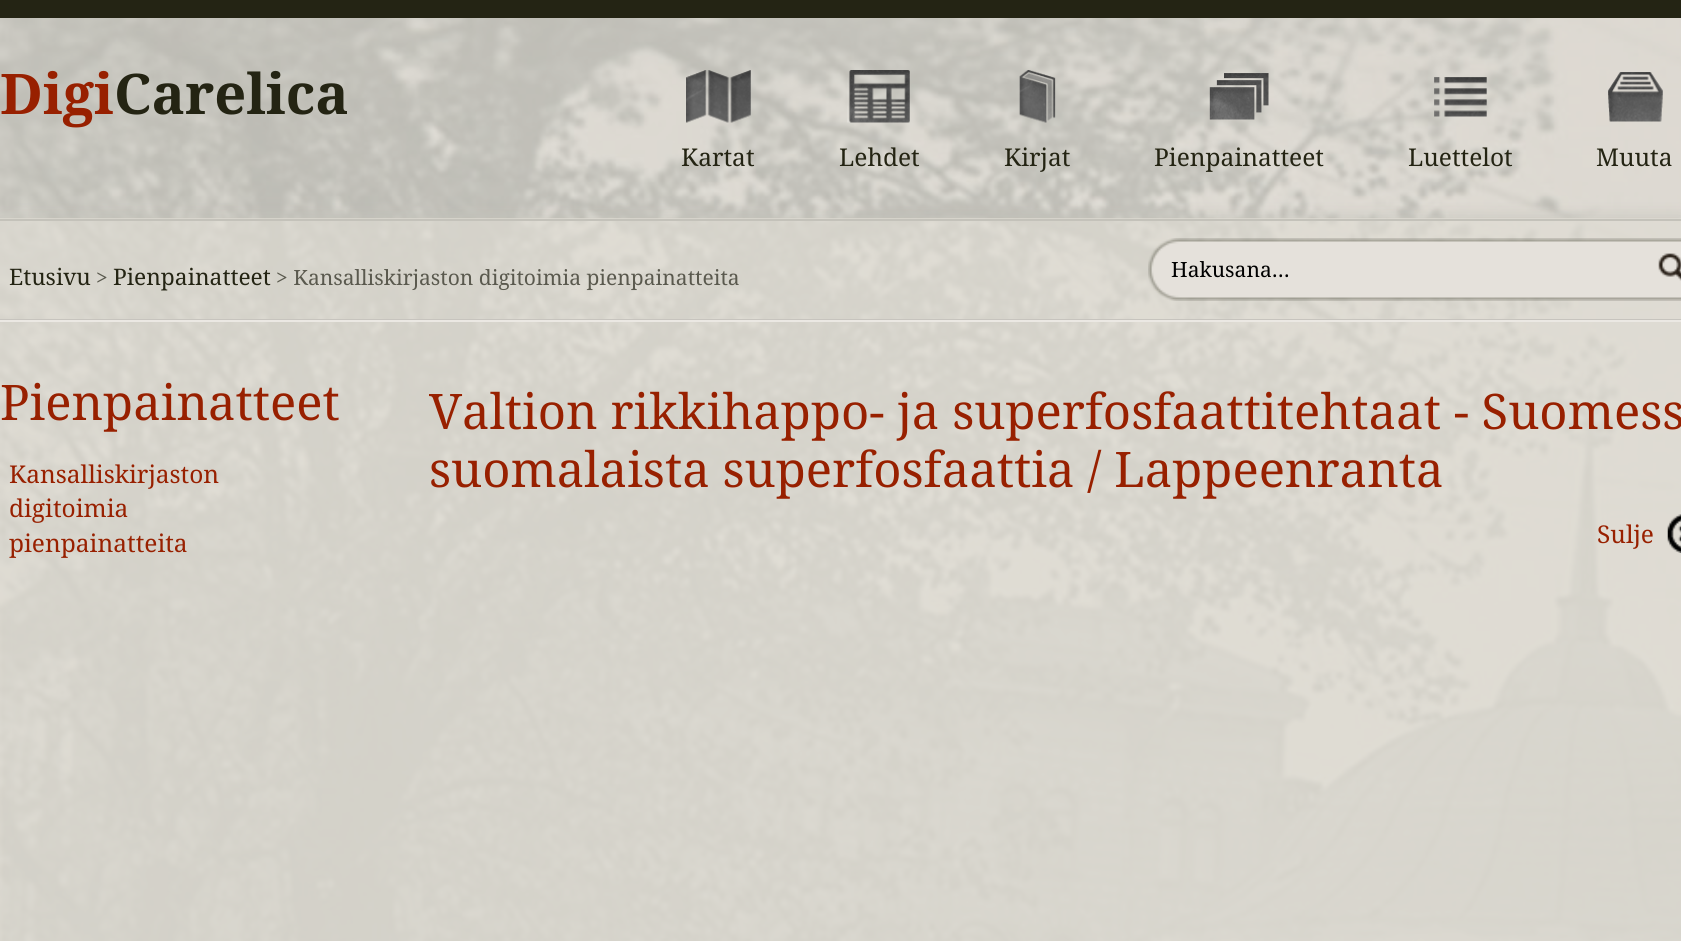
#include <cairo.h>
#include <math.h>
#include <stddef.h>


static void rgb(cairo_t *cr, int r, int g, int b)
{
	cairo_set_source_rgb(cr, r / 255.0, g / 255.0, b / 255.0);
}

static void face(cairo_t *cr, const char *family, double size, int italic, int bold)
{
	cairo_select_font_face(cr, family, italic ? CAIRO_FONT_SLANT_ITALIC : CAIRO_FONT_SLANT_NORMAL,
		bold ? CAIRO_FONT_WEIGHT_BOLD : CAIRO_FONT_WEIGHT_NORMAL);
	cairo_set_font_size(cr, size);
}

static void label(cairo_t *cr, double x, double y, const char *s)
{
	cairo_move_to(cr, x, y);
	cairo_show_text(cr, s);
}

static void rect(cairo_t *cr, double x, double y, double w, double h)
{
	cairo_rectangle(cr, x, y, w, h);
	cairo_fill(cr);
}

static void rrect(cairo_t *cr, double x, double y, double w, double h, double r)
{
	cairo_new_sub_path(cr);
	cairo_arc(cr, x + w - r, y + h - r, r, 0, M_PI / 2);
	cairo_arc(cr, x + r, y + h - r, r, M_PI / 2, M_PI);
	cairo_arc(cr, x + r, y + r, r, M_PI, 1.5 * M_PI);
	cairo_arc(cr, x + w - r, y + r, r, 1.5 * M_PI, 2 * M_PI);
	cairo_close_path(cr);
}

static void soft_shadow(cairo_t *cr, double x, double y, double w, double h, double r, double blur, double alpha)
{
	cairo_push_group_with_content(cr, CAIRO_CONTENT_ALPHA);
	cairo_set_operator(cr, CAIRO_OPERATOR_SOURCE);
	for (int i = 15; i >= -15 && fmin(w, h) + blur * i / 3 > 0; i -= 2) {
		double e = blur * i / 6;
		cairo_set_source_rgba(cr, 0, 0, 0, alpha * erfc((i - 1) / 8.5) / 2);
		rrect(cr, x - e, y - e, w + 2 * e, h + 2 * e, fmax(0, fmin(r + e + blur * .6, fmin(w, h) / 2 + e)));
		cairo_fill(cr);
	}
	cairo_pattern_t *soft = cairo_pop_group(cr);
	cairo_mask(cr, soft);
	cairo_pattern_destroy(soft);
}

static void image(cairo_t *cr, const char *path, double x, double y, double w, double h)
{
	cairo_surface_t *image = cairo_image_surface_create_from_png(path);
	cairo_save(cr);
	cairo_set_source_surface(cr, image, x, y);
	cairo_rectangle(cr, x, y, w, h);
	cairo_fill(cr);
	cairo_restore(cr);
	cairo_surface_destroy(image);
}

static void draw(cairo_t *cr) {
	rgb(cr, 255, 255, 255);
	cairo_paint(cr);
	rgb(cr, 36, 36, 20);
	rect(cr, 0, 0, 1681, 18);
	image(cr, "image0.png", 0, 18, 1681, 923);
	face(cr, "Droid Serif", 56, 0, 1);
	rgb(cr, 152, 32, 0);
	label(cr, 0, 114, "Digi");
	rgb(cr, 36, 36, 19);
	label(cr, 114, 114, "Carelica");
	image(cr, "image1.png", 686, 70, 65, 53);
	face(cr, "Droid Serif", 24.5, 0, 0);
	label(cr, 681, 166, "Kartat");
	image(cr, "image2.png", 847, 70, 63, 53);
	label(cr, 839, 166, "Lehdet");
	image(cr, "image3.png", 1019, 70, 37, 53);
	label(cr, 1004, 166, "Kirjat");
	image(cr, "image4.png", 1209, 73, 60, 47);
	label(cr, 1154, 166, "Pienpainatteet");
	image(cr, "image5.png", 1434, 77, 53, 40);
	label(cr, 1408, 166, "Luettelot");
	image(cr, "image6.png", 1608, 72, 55, 50);
	label(cr, 1596, 166, "Muuta");
	cairo_save(cr);
	cairo_rectangle(cr, 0, 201, 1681, 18);
	cairo_clip(cr);
	rgb(cr, 196, 194, 186);
	soft_shadow(cr, 0, 219, 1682, 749, 0, 9, 1);
	cairo_restore(cr);
	cairo_set_source_rgba(cr, 0.875, 0.863, 0.831, 0.68);
	rect(cr, 0, 218, 1681, 723);
	rgb(cr, 196, 194, 186);
	rect(cr, 0, 219, 1681, 2);
	rgb(cr, 199, 196, 190);
	rect(cr, 0, 319, 1681, 1);
	face(cr, "Droid Serif", 22.75, 0, 0);
	rgb(cr, 36, 36, 19);
	label(cr, 9, 285, "Etusivu");
	face(cr, "Droid Serif", 21, 0, 0);
	rgb(cr, 90, 89, 78);
	label(cr, 96, 285, ">");
	face(cr, "Droid Serif", 22.75, 0, 0);
	rgb(cr, 36, 36, 19);
	label(cr, 113, 285, "Pienpainatteet");
	face(cr, "Droid Serif", 21, 0, 0);
	rgb(cr, 90, 89, 78);
	label(cr, 276, 285, "> Kansalliskirjaston digitoimia pienpainatteita");
	image(cr, "image7.png", 1148, 238, 533, 63);
	rgb(cr, 0, 0, 0);
	label(cr, 1171, 277, "Hakusana...");
	rgb(cr, 235, 232, 227);
	rect(cr, 0, 320, 1681, 2);
	face(cr, "Droid Serif", 49, 0, 0);
	rgb(cr, 152, 32, 0);
	label(cr, 0, 420, "Pienpainatteet");
	face(cr, "Droid Serif", 24.5, 0, 0);
	label(cr, 9, 483, "Kansalliskirjaston");
	label(cr, 9, 517, "digitoimia");
	label(cr, 9, 552, "pienpainatteita");
	face(cr, "Droid Serif", 49, 0, 0);
	label(cr, 429, 429, "Valtion rikkihappo- ja superfosfaattitehtaat - Suomess");
	label(cr, 429, 487, "suomalaista superfosfaattia / Lappeenranta");
	image(cr, "image8.png", 1667, 514, 14, 39);
	face(cr, "Droid Serif", 24.5, 0, 0);
	label(cr, 1597, 543, "Sulje");
}

int main(void) {
	cairo_surface_t *surface = cairo_image_surface_create(CAIRO_FORMAT_RGB24, 1681, 941);
	cairo_t *cr = cairo_create(surface);
	cairo_font_options_t *options = cairo_font_options_create();
	cairo_font_options_set_hint_metrics(options, CAIRO_HINT_METRICS_OFF);
	cairo_font_options_set_hint_style(options, CAIRO_HINT_STYLE_NONE);
	cairo_set_font_options(cr, options);
	cairo_set_miter_limit(cr, 4);
	draw(cr);
	cairo_surface_write_to_png(surface, "render.png");
	cairo_font_options_destroy(options);
	cairo_destroy(cr);
	cairo_surface_destroy(surface);
	return 0;
}
